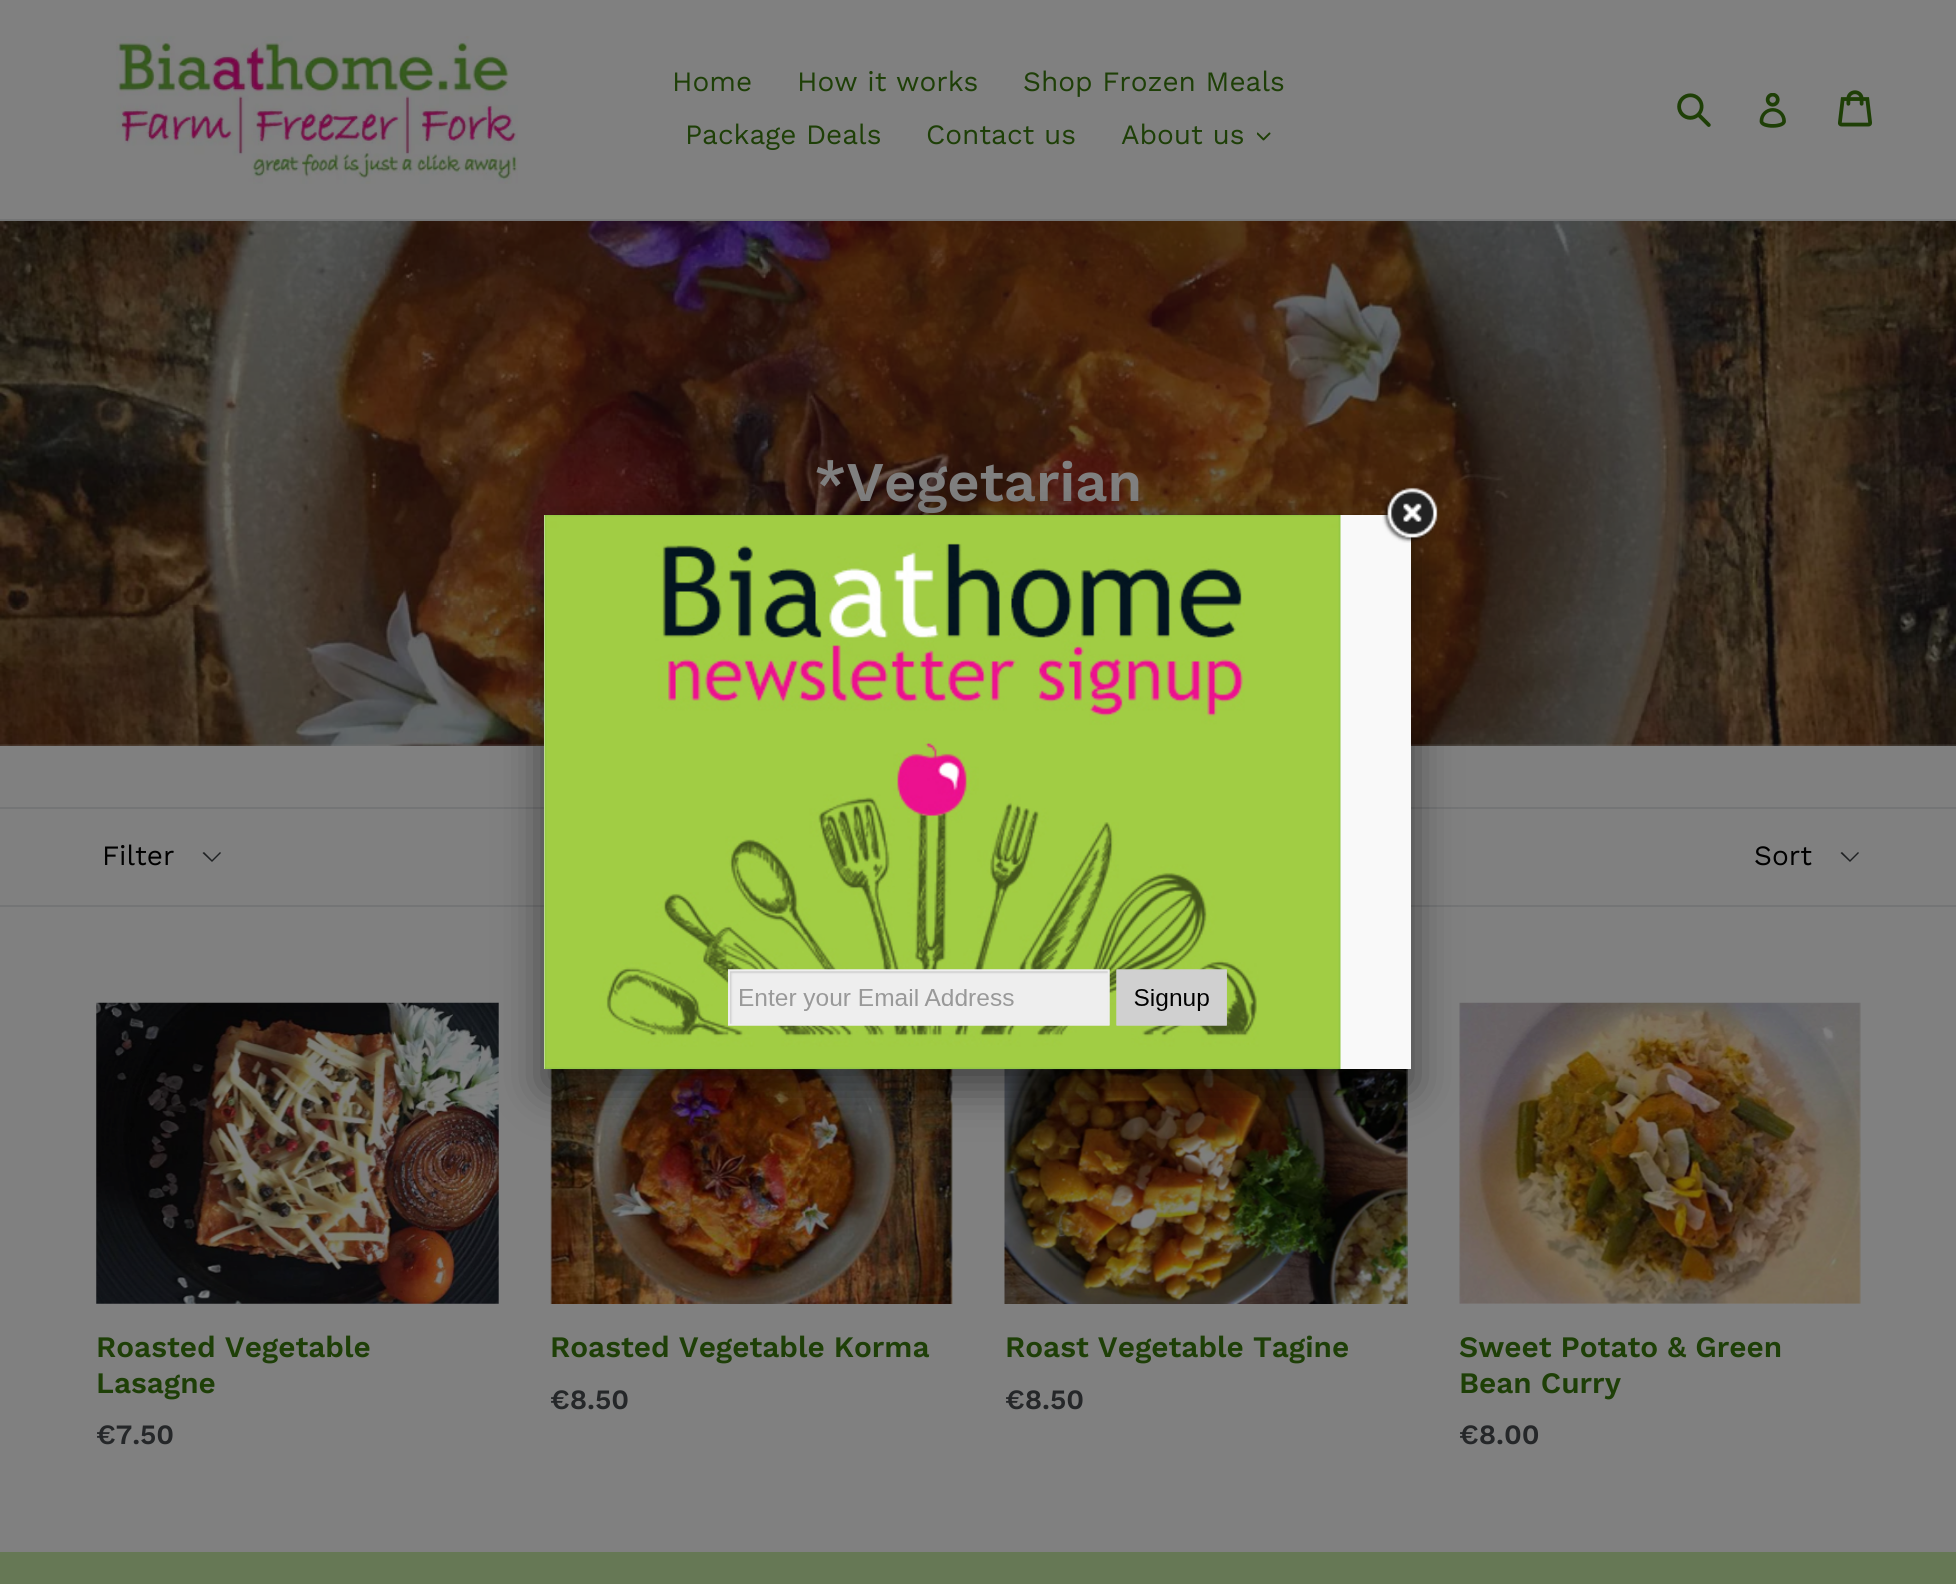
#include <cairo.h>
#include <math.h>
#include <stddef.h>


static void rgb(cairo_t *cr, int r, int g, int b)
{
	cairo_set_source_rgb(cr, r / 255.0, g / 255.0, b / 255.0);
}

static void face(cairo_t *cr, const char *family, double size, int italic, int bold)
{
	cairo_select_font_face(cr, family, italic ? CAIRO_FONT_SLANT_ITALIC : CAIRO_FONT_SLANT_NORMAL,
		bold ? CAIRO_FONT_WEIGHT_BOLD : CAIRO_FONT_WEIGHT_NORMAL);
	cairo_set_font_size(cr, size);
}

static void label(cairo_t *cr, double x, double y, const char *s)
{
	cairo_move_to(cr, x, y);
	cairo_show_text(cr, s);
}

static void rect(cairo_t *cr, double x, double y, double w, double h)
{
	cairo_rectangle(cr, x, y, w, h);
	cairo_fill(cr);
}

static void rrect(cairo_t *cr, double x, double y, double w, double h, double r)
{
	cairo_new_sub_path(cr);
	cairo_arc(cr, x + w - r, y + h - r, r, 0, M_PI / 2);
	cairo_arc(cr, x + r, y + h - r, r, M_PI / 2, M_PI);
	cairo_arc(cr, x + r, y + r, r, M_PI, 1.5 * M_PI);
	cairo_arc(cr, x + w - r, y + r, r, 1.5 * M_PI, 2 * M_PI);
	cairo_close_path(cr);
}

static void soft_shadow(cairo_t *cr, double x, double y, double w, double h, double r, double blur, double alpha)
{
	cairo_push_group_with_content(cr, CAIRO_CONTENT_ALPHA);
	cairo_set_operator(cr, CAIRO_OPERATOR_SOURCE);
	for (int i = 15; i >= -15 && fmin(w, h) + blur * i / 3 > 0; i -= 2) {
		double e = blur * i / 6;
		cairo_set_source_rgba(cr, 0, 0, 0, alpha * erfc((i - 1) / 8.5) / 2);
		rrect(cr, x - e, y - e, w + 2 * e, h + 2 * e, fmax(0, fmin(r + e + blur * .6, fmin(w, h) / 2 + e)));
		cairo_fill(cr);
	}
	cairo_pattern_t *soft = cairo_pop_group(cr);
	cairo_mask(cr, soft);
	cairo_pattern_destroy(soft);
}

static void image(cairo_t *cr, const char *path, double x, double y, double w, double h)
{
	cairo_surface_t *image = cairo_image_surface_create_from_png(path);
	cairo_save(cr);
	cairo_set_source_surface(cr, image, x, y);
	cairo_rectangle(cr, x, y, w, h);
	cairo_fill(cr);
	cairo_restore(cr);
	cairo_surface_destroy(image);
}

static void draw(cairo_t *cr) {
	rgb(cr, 128, 128, 128);
	cairo_paint(cr);
	rgb(cr, 116, 117, 118);
	rect(cr, 0, 219, 1956, 2);
	image(cr, "image0.png", 116, 36, 402, 148);
	face(cr, "Work Sans", 28, 0, 0);
	rgb(cr, 30, 63, 7);
	label(cr, 672, 91, "Home");
	label(cr, 797, 91, "How it works");
	label(cr, 1023, 91, "Shop Frozen Meals");
	label(cr, 685, 144, "Package Deals");
	label(cr, 926, 144, "Contact us");
	label(cr, 1121, 144, "About us");
	image(cr, "image1.png", 1257, 132, 14, 9);
	image(cr, "image2.png", 1677, 93, 34, 34);
	image(cr, "image3.png", 1759, 93, 27, 35);
	image(cr, "image4.png", 1838, 90, 34, 37);
	image(cr, "image5.png", 0, 221, 1956, 525);
	face(cr, "Work Sans SemiBold", 56, 0, 0);
	rgb(cr, 128, 128, 128);
	label(cr, 814, 501, "*Vegetarian");
	rgb(cr, 116, 117, 118);
	rect(cr, 0, 807, 1956, 2);
	rect(cr, 0, 905, 1956, 2);
	rgb(cr, 31, 33, 35);
	cairo_new_path(cr);
	cairo_move_to(cr, 212, 862);
	cairo_line_to(cr, 202.5, 853);
	cairo_line_to(cr, 204, 852);
	cairo_line_to(cr, 212, 860);
	cairo_line_to(cr, 220, 852);
	cairo_line_to(cr, 221, 853);
	cairo_close_path(cr);
	cairo_fill(cr);
	face(cr, "Work Sans", 28, 0, 0);
	rgb(cr, 0, 0, 0);
	label(cr, 102, 865, "Filter");
	rgb(cr, 31, 33, 35);
	cairo_new_path(cr);
	cairo_move_to(cr, 1850, 862);
	cairo_line_to(cr, 1840.5, 853);
	cairo_line_to(cr, 1842, 852);
	cairo_line_to(cr, 1850, 860);
	cairo_line_to(cr, 1858, 852);
	cairo_line_to(cr, 1859, 853);
	cairo_close_path(cr);
	cairo_fill(cr);
	rgb(cr, 0, 0, 0);
	label(cr, 1754, 865, "Sort");
	image(cr, "image6.png", 96, 1002, 403, 302);
	face(cr, "Work Sans SemiBold", 29.75, 0, 0);
	rgb(cr, 30, 63, 7);
	label(cr, 96, 1357, "Roasted Vegetable");
	label(cr, 96, 1393, "Lasagne");
	face(cr, "Work Sans SemiBold", 28, 0, 0);
	rgb(cr, 37, 39, 41);
	label(cr, 96, 1444, "€7.50");
	image(cr, "image7.png", 550, 1069, 403, 235);
	face(cr, "Work Sans SemiBold", 29.75, 0, 0);
	rgb(cr, 30, 63, 7);
	label(cr, 550, 1357, "Roasted Vegetable Korma");
	face(cr, "Work Sans SemiBold", 28, 0, 0);
	rgb(cr, 37, 39, 41);
	label(cr, 550, 1409, "€8.50");
	image(cr, "image8.png", 1004, 1069, 404, 235);
	face(cr, "Work Sans SemiBold", 29.75, 0, 0);
	rgb(cr, 30, 63, 7);
	label(cr, 1005, 1357, "Roast Vegetable Tagine");
	face(cr, "Work Sans SemiBold", 28, 0, 0);
	rgb(cr, 37, 39, 41);
	label(cr, 1005, 1409, "€8.50");
	image(cr, "image9.png", 1459, 1002, 402, 302);
	face(cr, "Work Sans SemiBold", 29.75, 0, 0);
	rgb(cr, 30, 63, 7);
	label(cr, 1459, 1357, "Sweet Potato & Green");
	label(cr, 1459, 1393, "Bean Curry");
	face(cr, "Work Sans SemiBold", 28, 0, 0);
	rgb(cr, 37, 39, 41);
	label(cr, 1459, 1444, "€8.00");
	rgb(cr, 102, 120, 85);
	rect(cr, 0, 1552, 1956, 32);
	rgb(cr, 0, 0, 0);
	soft_shadow(cr, 544, 532, 867, 555, 0, 22, 0.5);
	rgb(cr, 249, 249, 249);
	rect(cr, 544, 515, 867, 554);
	image(cr, "image10.png", 544, 515, 797, 555);
	image(cr, "image11.png", 1382, 487, 56, 56);
}

int main(void) {
	cairo_surface_t *surface = cairo_image_surface_create(CAIRO_FORMAT_RGB24, 1956, 1584);
	cairo_t *cr = cairo_create(surface);
	cairo_font_options_t *options = cairo_font_options_create();
	cairo_font_options_set_hint_metrics(options, CAIRO_HINT_METRICS_OFF);
	cairo_font_options_set_hint_style(options, CAIRO_HINT_STYLE_NONE);
	cairo_set_font_options(cr, options);
	cairo_set_miter_limit(cr, 4);
	draw(cr);
	cairo_surface_write_to_png(surface, "render.png");
	cairo_font_options_destroy(options);
	cairo_destroy(cr);
	cairo_surface_destroy(surface);
	return 0;
}
